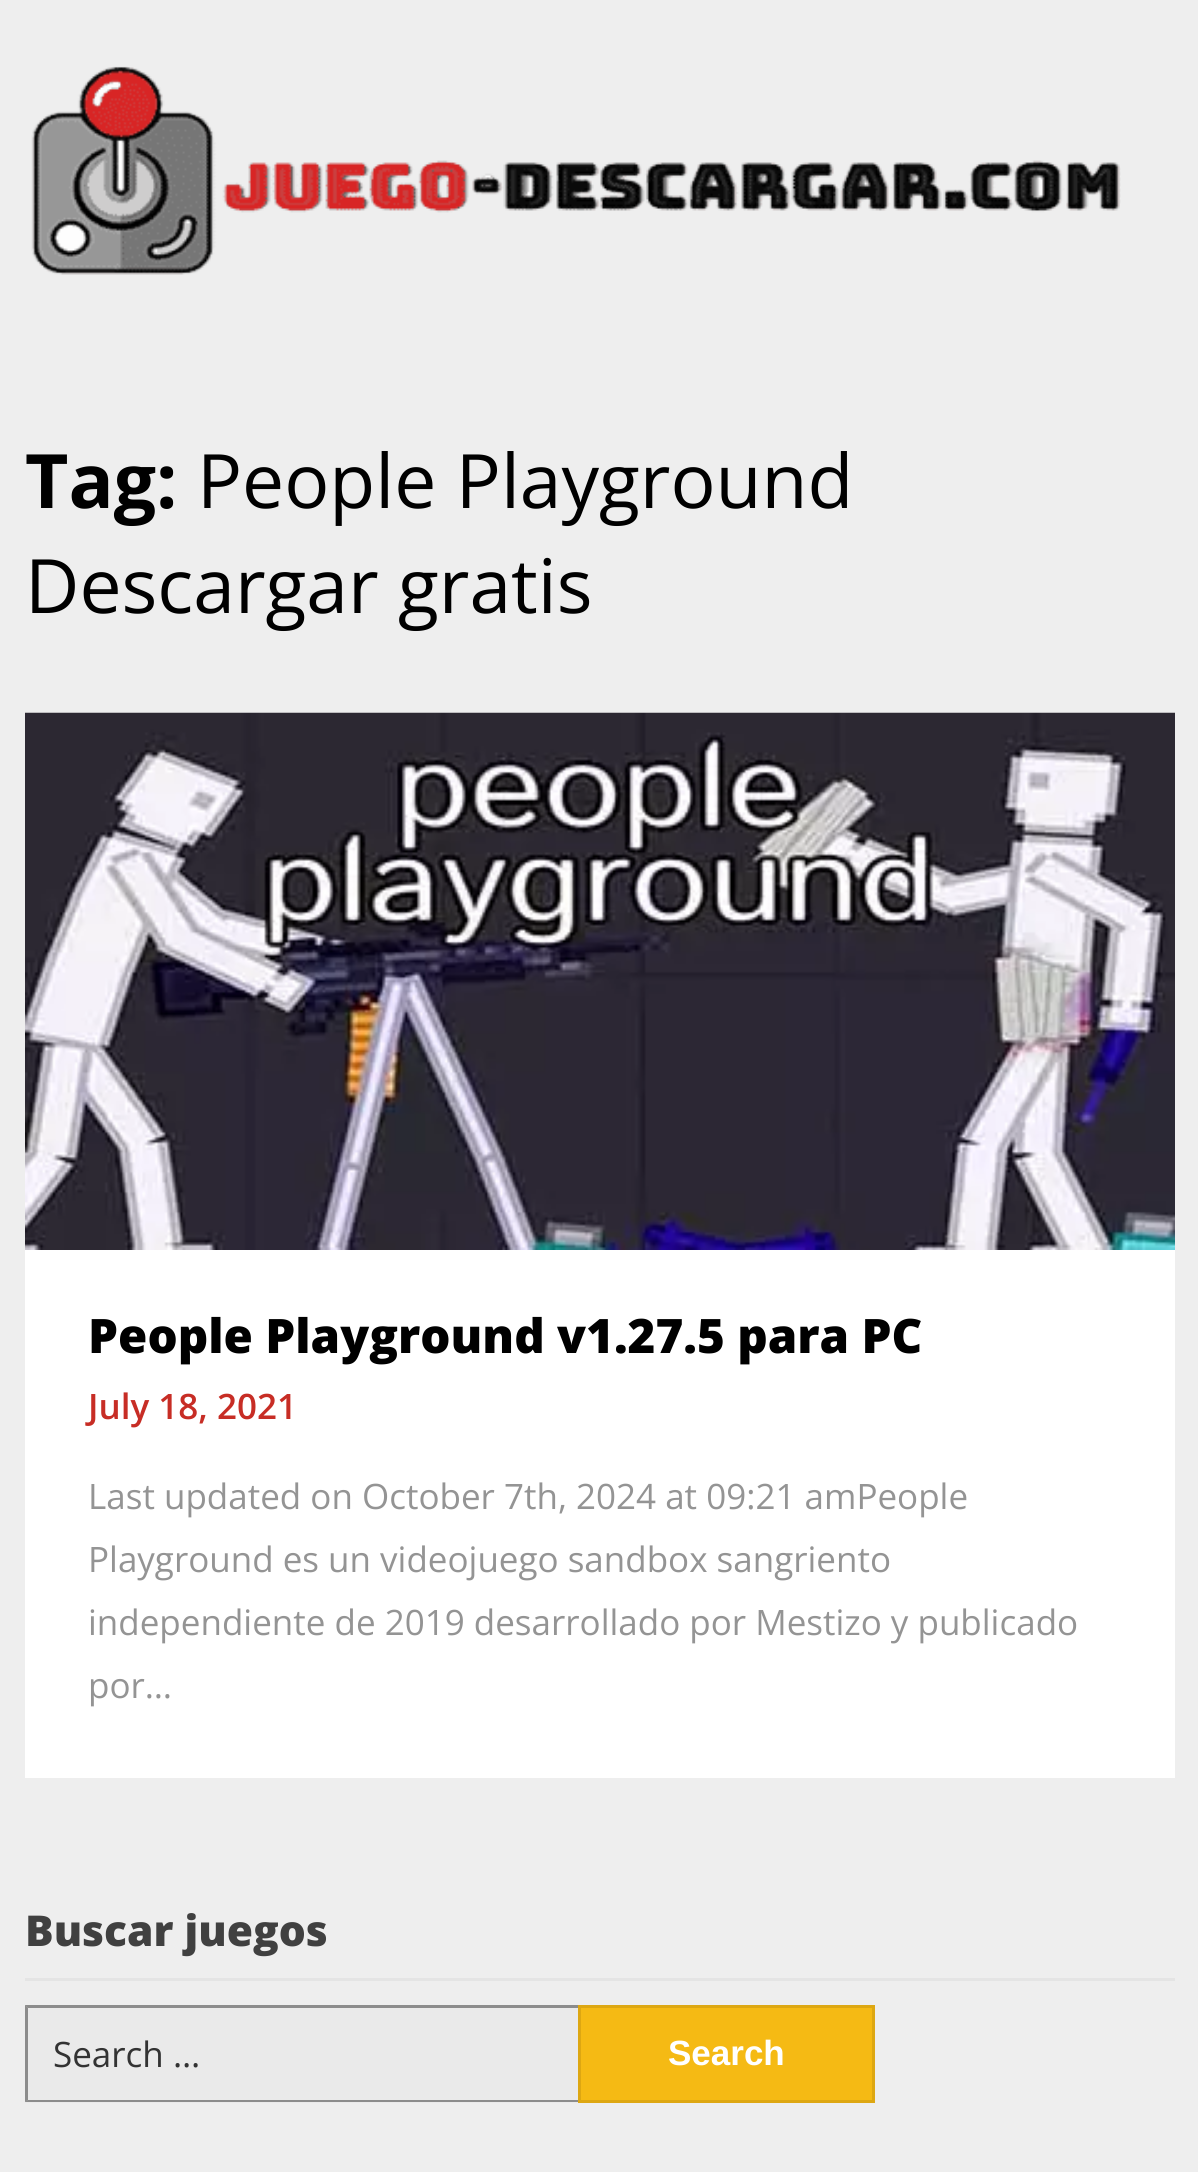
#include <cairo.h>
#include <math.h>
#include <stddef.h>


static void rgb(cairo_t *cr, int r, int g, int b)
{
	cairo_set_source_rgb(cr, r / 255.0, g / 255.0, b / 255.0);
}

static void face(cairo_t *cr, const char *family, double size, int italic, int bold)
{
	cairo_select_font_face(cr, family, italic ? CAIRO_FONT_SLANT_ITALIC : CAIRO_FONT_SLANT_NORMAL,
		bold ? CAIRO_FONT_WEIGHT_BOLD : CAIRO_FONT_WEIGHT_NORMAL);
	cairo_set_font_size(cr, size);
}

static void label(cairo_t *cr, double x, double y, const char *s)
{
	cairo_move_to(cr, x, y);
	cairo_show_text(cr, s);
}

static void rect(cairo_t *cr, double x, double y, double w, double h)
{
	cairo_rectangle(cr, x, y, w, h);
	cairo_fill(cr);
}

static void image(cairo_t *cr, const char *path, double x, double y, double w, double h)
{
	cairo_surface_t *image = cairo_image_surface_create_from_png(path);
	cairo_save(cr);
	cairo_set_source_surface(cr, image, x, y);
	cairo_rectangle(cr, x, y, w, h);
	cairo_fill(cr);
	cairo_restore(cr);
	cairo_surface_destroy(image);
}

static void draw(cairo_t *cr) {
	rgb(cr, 238, 238, 238);
	cairo_paint(cr);
	image(cr, "image0.png", 31, 66, 1090, 209);
	face(cr, "Open Sans", 75, 0, 1);
	rgb(cr, 0, 0, 0);
	label(cr, 25, 508, "Tag:");
	face(cr, "Open Sans", 75, 0, 0);
	label(cr, 197, 508, "People Playground");
	label(cr, 25, 613, "Descargar gratis");
	rgb(cr, 255, 255, 255);
	rect(cr, 25, 1250, 1150, 528);
	image(cr, "image1.png", 25, 712, 1150, 538);
	face(cr, "Open Sans ExtraBold", 47.5, 0, 0);
	rgb(cr, 0, 0, 0);
	label(cr, 88, 1353, "People Playground v1.27.5 para PC");
	face(cr, "Open Sans SemiBold", 35, 0, 0);
	rgb(cr, 199, 45, 37);
	label(cr, 88, 1419, "July 18, 2021");
	face(cr, "Open Sans", 35, 0, 0);
	rgb(cr, 148, 148, 148);
	label(cr, 88, 1509, "Last updated on October 7th, 2024 at 09:21 amPeople");
	label(cr, 88, 1572, "Playground es un videojuego sandbox sangriento");
	label(cr, 88, 1635, "independiente de 2019 desarrollado por Mestizo y publicado");
	label(cr, 88, 1698, "por…");
	rgb(cr, 228, 228, 228);
	rect(cr, 25, 1978, 1150, 3);
	face(cr, "Open Sans ExtraBold", 42.5, 0, 0);
	rgb(cr, 64, 64, 64);
	label(cr, 25, 1946, "Buscar juegos");
	rgb(cr, 234, 234, 234);
	rect(cr, 25, 2005, 553, 98);
	rgb(cr, 140, 140, 140);
	cairo_new_path(cr);
	cairo_move_to(cr, 25, 2005);
	cairo_line_to(cr, 578, 2005);
	cairo_line_to(cr, 578, 2008);
	cairo_line_to(cr, 28, 2008);
	cairo_close_path(cr);
	cairo_fill(cr);
	cairo_new_path(cr);
	cairo_move_to(cr, 578, 2102);
	cairo_line_to(cr, 25, 2102);
	cairo_line_to(cr, 28, 2100);
	cairo_line_to(cr, 578, 2100);
	cairo_close_path(cr);
	cairo_fill(cr);
	cairo_set_source_rgba(cr, 0, 0, 0, 0.4);
	cairo_new_path(cr);
	cairo_move_to(cr, 25, 2102);
	cairo_line_to(cr, 25, 2005);
	cairo_line_to(cr, 28, 2008);
	cairo_line_to(cr, 28, 2100);
	cairo_close_path(cr);
	cairo_fill(cr);
	face(cr, "Open Sans", 35, 0, 0);
	rgb(cr, 51, 51, 51);
	label(cr, 53, 2067, "Search …");
	rgb(cr, 245, 186, 20);
	cairo_rectangle(cr, 579.5, 2006.5, 294, 95);
	cairo_fill_preserve(cr);
	rgb(cr, 221, 167, 18);
	cairo_set_line_width(cr, 3);
	cairo_stroke(cr);
	face(cr, "Liberation Sans", 35, 0, 1);
	rgb(cr, 255, 255, 255);
	label(cr, 668, 2065, "Search");
}

int main(void) {
	cairo_surface_t *surface = cairo_image_surface_create(CAIRO_FORMAT_RGB24, 1198, 2172);
	cairo_t *cr = cairo_create(surface);
	cairo_font_options_t *options = cairo_font_options_create();
	cairo_font_options_set_hint_metrics(options, CAIRO_HINT_METRICS_OFF);
	cairo_font_options_set_hint_style(options, CAIRO_HINT_STYLE_NONE);
	cairo_set_font_options(cr, options);
	cairo_set_miter_limit(cr, 4);
	draw(cr);
	cairo_surface_write_to_png(surface, "render.png");
	cairo_font_options_destroy(options);
	cairo_destroy(cr);
	cairo_surface_destroy(surface);
	return 0;
}
